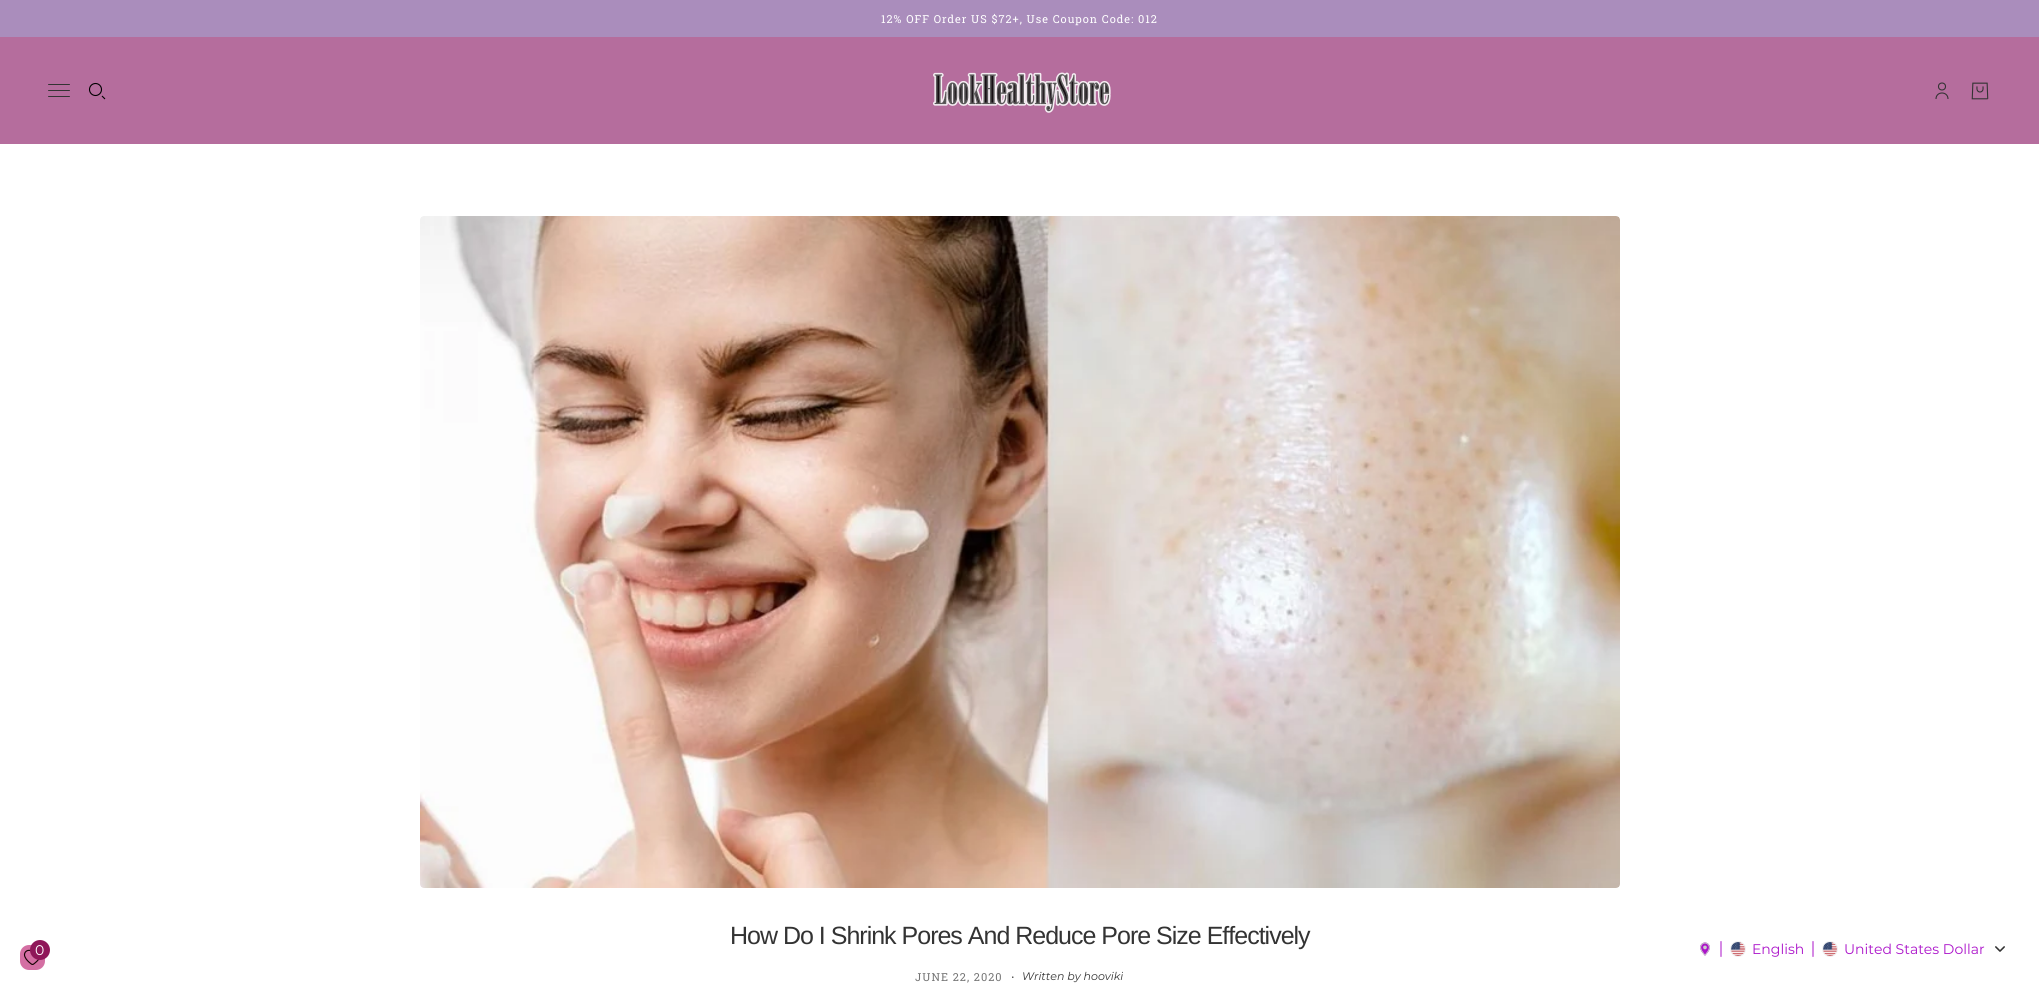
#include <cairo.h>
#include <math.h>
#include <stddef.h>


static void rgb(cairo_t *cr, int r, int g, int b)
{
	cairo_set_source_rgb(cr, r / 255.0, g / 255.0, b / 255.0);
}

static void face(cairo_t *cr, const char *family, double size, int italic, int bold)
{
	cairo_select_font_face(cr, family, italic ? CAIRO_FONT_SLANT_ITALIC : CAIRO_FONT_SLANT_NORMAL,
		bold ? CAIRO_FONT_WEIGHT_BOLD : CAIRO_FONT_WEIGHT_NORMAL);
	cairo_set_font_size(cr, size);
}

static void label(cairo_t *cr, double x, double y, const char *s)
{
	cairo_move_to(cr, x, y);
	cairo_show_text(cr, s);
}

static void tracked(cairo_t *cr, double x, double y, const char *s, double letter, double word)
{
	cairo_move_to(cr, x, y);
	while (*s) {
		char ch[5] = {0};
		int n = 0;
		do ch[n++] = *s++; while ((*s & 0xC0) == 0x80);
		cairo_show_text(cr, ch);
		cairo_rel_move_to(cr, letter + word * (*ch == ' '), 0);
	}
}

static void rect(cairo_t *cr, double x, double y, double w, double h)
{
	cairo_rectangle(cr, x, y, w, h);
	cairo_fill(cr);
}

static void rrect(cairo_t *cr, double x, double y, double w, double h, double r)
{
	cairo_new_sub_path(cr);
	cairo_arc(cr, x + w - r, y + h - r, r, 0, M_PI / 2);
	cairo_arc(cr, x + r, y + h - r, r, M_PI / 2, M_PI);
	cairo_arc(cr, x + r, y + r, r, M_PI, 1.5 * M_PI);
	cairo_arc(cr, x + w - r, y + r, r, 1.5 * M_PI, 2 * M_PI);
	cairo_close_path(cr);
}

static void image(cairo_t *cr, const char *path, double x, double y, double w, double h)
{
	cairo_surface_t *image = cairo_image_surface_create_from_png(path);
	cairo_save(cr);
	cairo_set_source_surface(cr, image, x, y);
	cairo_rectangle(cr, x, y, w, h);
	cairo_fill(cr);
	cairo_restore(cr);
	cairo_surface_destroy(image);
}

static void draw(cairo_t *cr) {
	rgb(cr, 255, 255, 255);
	cairo_paint(cr);
	rgb(cr, 212, 111, 163);
	rrect(cr, 20, 945, 25, 25, 9);
	cairo_fill(cr);
	image(cr, "image0.png", 23, 949, 17, 16);
	rgb(cr, 143, 23, 89);
	cairo_arc(cr, 40, 950, 10, 0, 2 * M_PI);
	cairo_fill(cr);
	face(cr, "Montserrat", 14, 0, 0);
	rgb(cr, 255, 255, 255);
	label(cr, 35, 955, "0");
	rgb(cr, 170, 141, 188);
	rect(cr, 0, 0, 2039, 37);
	face(cr, "Roboto Slab", 11, 0, 0);
	rgb(cr, 255, 255, 255);
	tracked(cr, 881, 23, "12% OFF Order US $72+, Use Coupon Code: 012", 1, 0);
	rgb(cr, 181, 109, 157);
	rect(cr, 0, 37, 2039, 107);
	rgb(cr, 51, 51, 51);
	rrect(cr, 48, 84, 22, 1, 0.5);
	cairo_fill(cr);
	rrect(cr, 48, 90, 22, 1, 0.5);
	cairo_fill(cr);
	rrect(cr, 48, 96, 22, 1, 0.5);
	cairo_fill(cr);
	cairo_arc(cr, 95.5, 89.5, 6, 0, 2 * M_PI);
	rgb(cr, 0, 0, 0);
	cairo_set_line_width(cr, 1.1);
	cairo_stroke(cr);
	cairo_new_path(cr);
	cairo_move_to(cr, 102, 96);
	cairo_line_to(cr, 105, 99);
	cairo_stroke(cr);
	image(cr, "image1.png", 933, 72, 178, 41);
	cairo_arc(cr, 1942, 86.5, 3.5, 0, 2 * M_PI);
	rgb(cr, 51, 51, 51);
	cairo_stroke(cr);
	cairo_new_path(cr);
	cairo_move_to(cr, 1936, 99);
	cairo_curve_to(cr, 1936, 91, 1948, 91, 1948, 99);
	cairo_stroke(cr);
	image(cr, "image2.png", 1971, 82, 18, 18);
	image(cr, "image3.png", 420, 216, 1200, 672);
	face(cr, "Liberation Sans", 25, 0, 0);
	tracked(cr, 730, 944, "How Do I Shrink Pores And Reduce Pore Size Effectively", -1, 0);
	face(cr, "Roboto Slab", 11, 0, 0);
	rgb(cr, 116, 116, 116);
	tracked(cr, 915, 981, "JUNE 22, 2020", 1, 0);
	face(cr, "Montserrat", 14, 0, 0);
	rgb(cr, 51, 51, 51);
	label(cr, 1011, 981, "·");
	face(cr, "Montserrat", 11, 1, 0);
	label(cr, 1022, 980, "Written by hooviki");
	image(cr, "image4.png", 1700, 942, 10, 14);
	image(cr, "image5.png", 1720, 941, 2, 16);
	cairo_arc(cr, 1738, 949, 7.5, 0, 2 * M_PI);
	rgb(cr, 240, 241, 242);
	cairo_set_line_width(cr, 1);
	cairo_stroke(cr);
	image(cr, "image6.png", 1731, 942, 14, 14);
	face(cr, "Montserrat", 14, 0, 0);
	rgb(cr, 172, 20, 202);
	label(cr, 1752, 954, "English");
	image(cr, "image5.png", 1812, 941, 2, 16);
	cairo_arc(cr, 1830, 949, 7.5, 0, 2 * M_PI);
	rgb(cr, 240, 241, 242);
	cairo_stroke(cr);
	image(cr, "image6.png", 1823, 942, 14, 14);
	rgb(cr, 172, 20, 202);
	label(cr, 1844, 954, "United States Dollar");
	image(cr, "image7.png", 1995, 946, 10, 6);
}

int main(void) {
	cairo_surface_t *surface = cairo_image_surface_create(CAIRO_FORMAT_RGB24, 2039, 990);
	cairo_t *cr = cairo_create(surface);
	cairo_font_options_t *options = cairo_font_options_create();
	cairo_font_options_set_hint_metrics(options, CAIRO_HINT_METRICS_OFF);
	cairo_font_options_set_hint_style(options, CAIRO_HINT_STYLE_NONE);
	cairo_set_font_options(cr, options);
	cairo_set_miter_limit(cr, 4);
	draw(cr);
	cairo_surface_write_to_png(surface, "render.png");
	cairo_font_options_destroy(options);
	cairo_destroy(cr);
	cairo_surface_destroy(surface);
	return 0;
}
